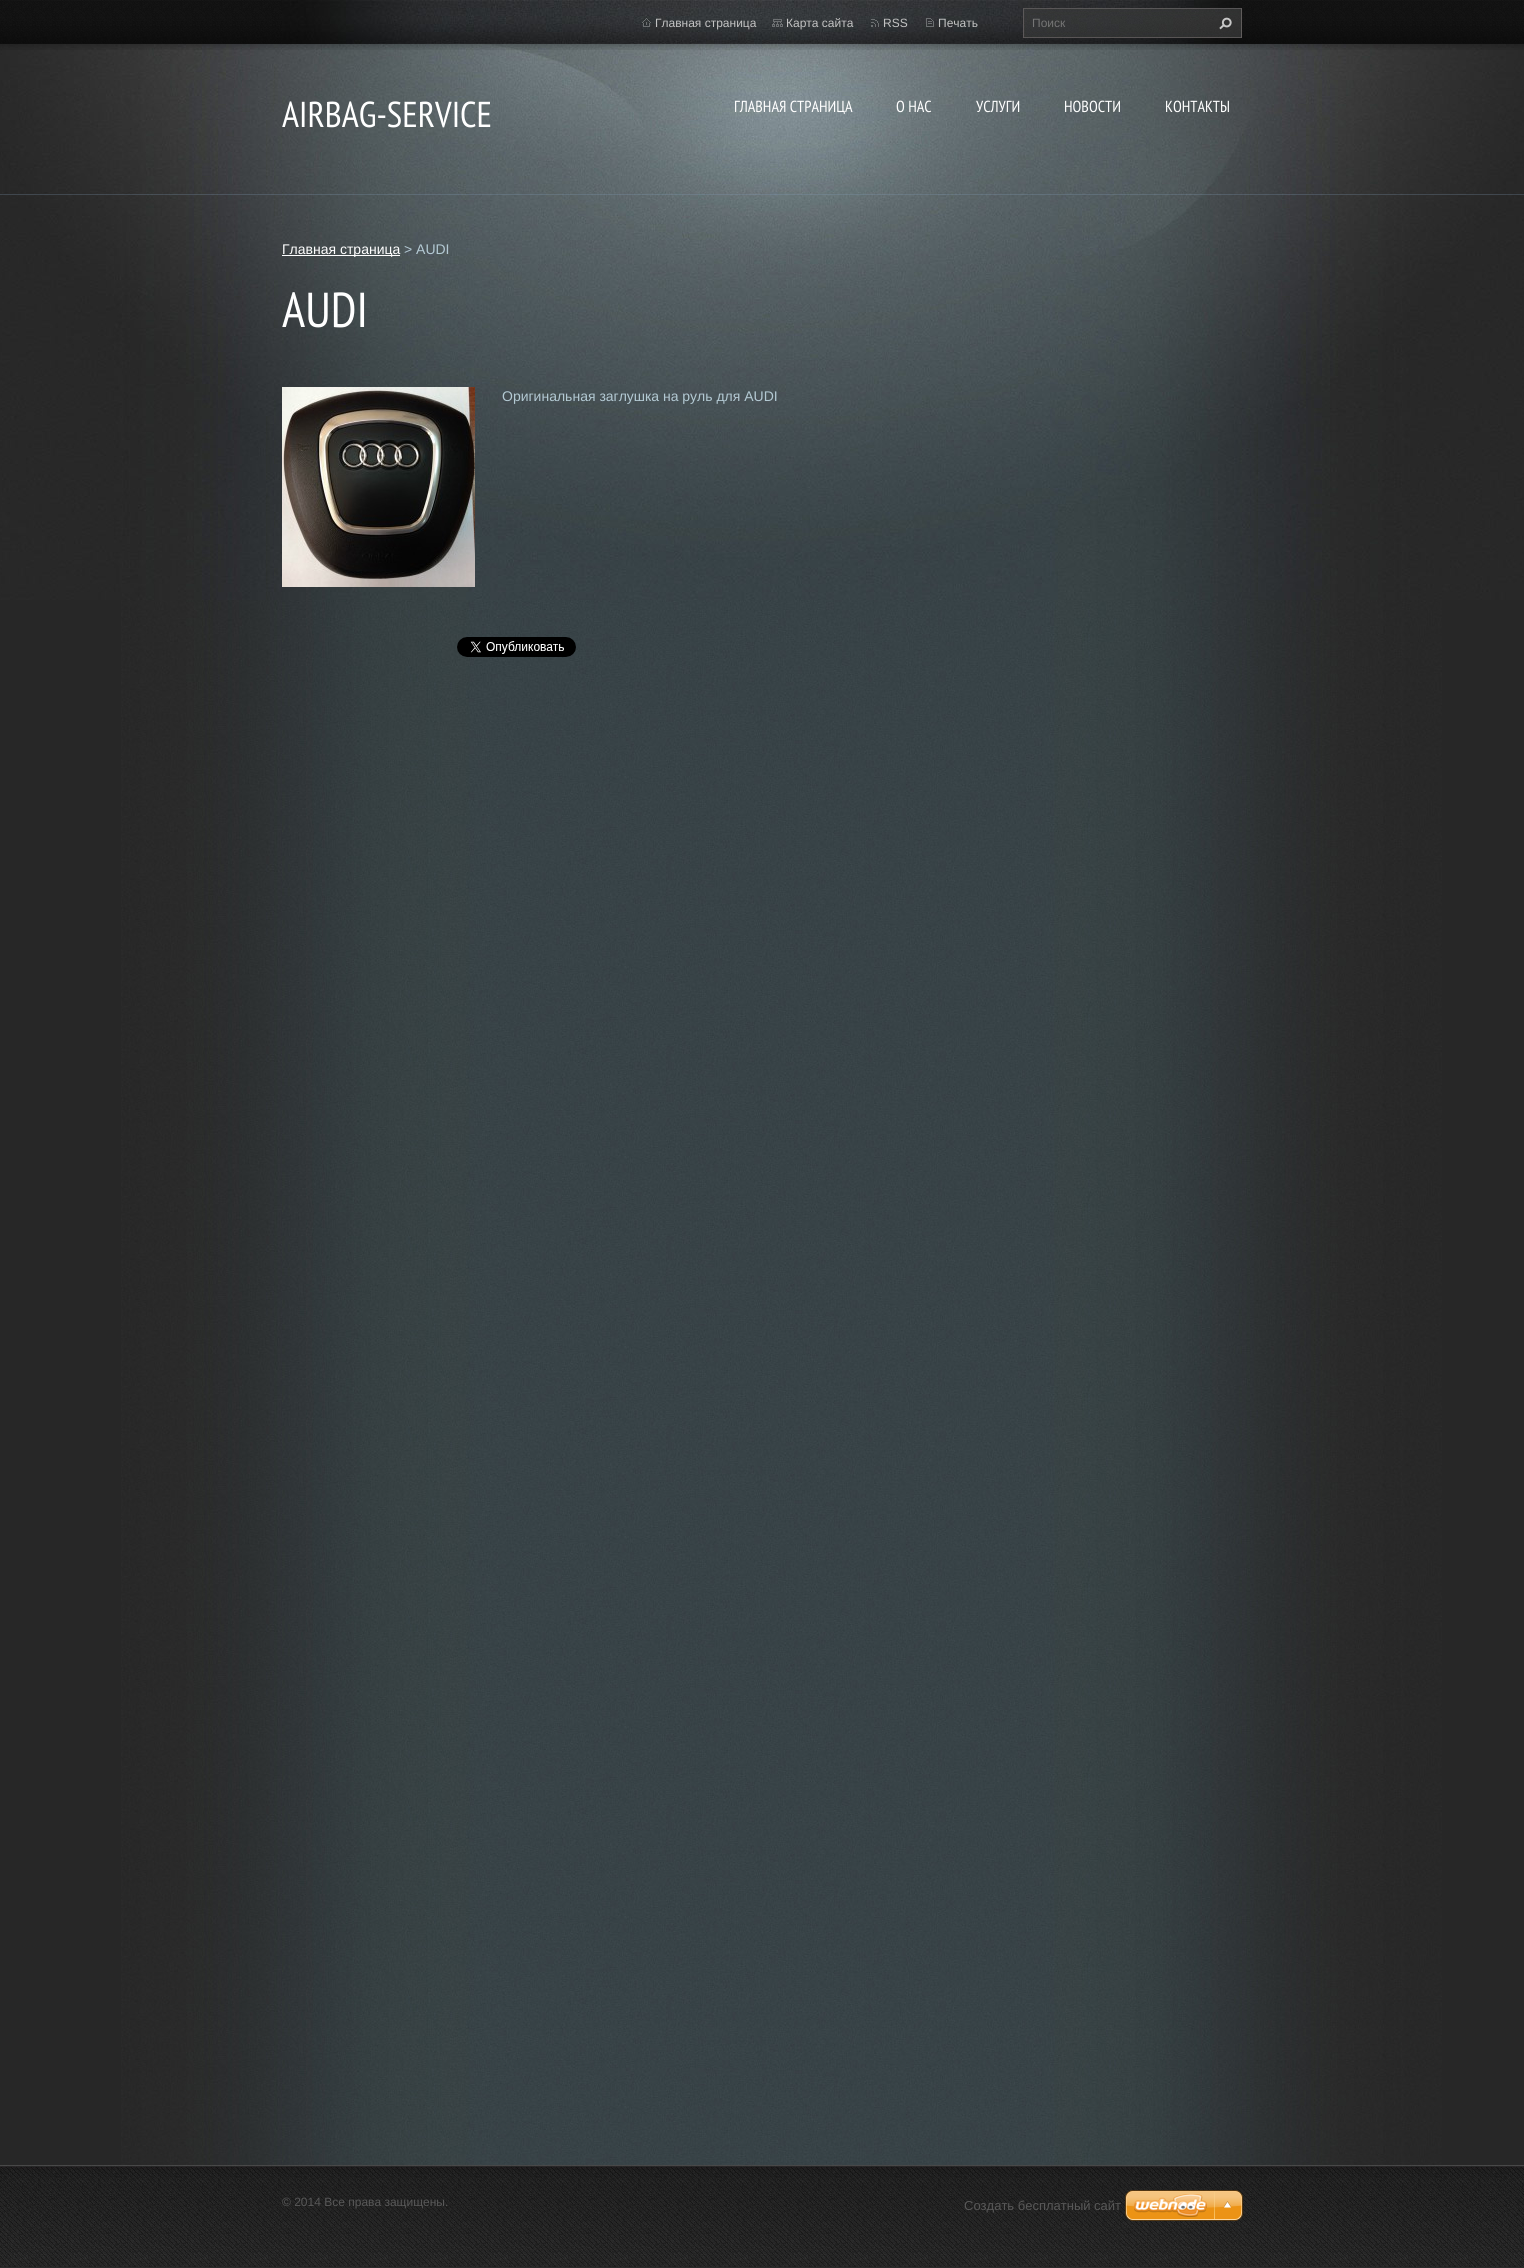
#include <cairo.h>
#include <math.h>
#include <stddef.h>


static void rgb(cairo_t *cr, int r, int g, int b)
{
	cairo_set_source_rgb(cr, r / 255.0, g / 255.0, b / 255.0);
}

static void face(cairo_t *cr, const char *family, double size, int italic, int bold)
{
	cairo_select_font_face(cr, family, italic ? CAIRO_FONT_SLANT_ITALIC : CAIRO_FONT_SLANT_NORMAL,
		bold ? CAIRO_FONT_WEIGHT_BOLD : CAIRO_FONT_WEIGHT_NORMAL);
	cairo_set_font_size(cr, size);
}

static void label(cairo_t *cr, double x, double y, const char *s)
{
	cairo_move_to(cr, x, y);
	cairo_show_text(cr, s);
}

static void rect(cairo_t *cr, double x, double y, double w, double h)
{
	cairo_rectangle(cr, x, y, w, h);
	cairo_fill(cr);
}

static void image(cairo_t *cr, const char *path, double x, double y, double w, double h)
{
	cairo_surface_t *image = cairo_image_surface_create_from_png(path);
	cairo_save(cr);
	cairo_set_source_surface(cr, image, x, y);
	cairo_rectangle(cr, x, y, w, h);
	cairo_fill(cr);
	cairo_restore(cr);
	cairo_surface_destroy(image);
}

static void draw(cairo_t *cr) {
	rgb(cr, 39, 39, 39);
	cairo_paint(cr);
	image(cr, "image0.png", 121, 600, 1321, 1565);
	image(cr, "image1.png", 0, 44, 1524, 556);
	cairo_set_source_rgba(cr, 0.514, 0.62, 0.725, 0.26);
	rect(cr, 0, 194, 1524, 1);
	image(cr, "image2.png", 0, 0, 1524, 50);
	image(cr, "image3.png", 282, 0, 960, 44);
	image(cr, "image4.png", 642, 18, 9, 9);
	face(cr, "Liberation Sans", 12, 0, 0);
	rgb(cr, 195, 195, 195);
	label(cr, 655, 27, "Главная страница");
	image(cr, "image5.png", 772, 19, 11, 8);
	label(cr, 786, 27, "Карта сайта");
	image(cr, "image6.png", 871, 19, 8, 8);
	label(cr, 883, 27, "RSS");
	image(cr, "image7.png", 926, 18, 8, 9);
	label(cr, 938, 27, "Печать");
	image(cr, "image8.png", 1023, 8, 219, 30);
	rgb(cr, 117, 117, 117);
	label(cr, 1032, 27, "Поиск");
	image(cr, "image9.png", 1219, 17, 13, 13);
	face(cr, "PT Sans Narrow", 36, 0, 0);
	rgb(cr, 255, 255, 255);
	label(cr, 282, 127, "AIRBAG-SERVICE");
	face(cr, "PT Sans Narrow", 16, 0, 0);
	label(cr, 734, 112, "ГЛАВНАЯ СТРАНИЦА");
	label(cr, 896, 112, "О НАС");
	label(cr, 976, 112, "УСЛУГИ");
	label(cr, 1064, 112, "НОВОСТИ");
	label(cr, 1165, 112, "КОНТАКТЫ");
	rect(cr, 282, 255, 118, 1);
	face(cr, "Liberation Sans", 14, 0, 0);
	label(cr, 282, 254, "Главная страница");
	rgb(cr, 179, 201, 211);
	label(cr, 404, 254, "> AUDI");
	face(cr, "PT Sans Narrow", 49, 0, 0);
	rgb(cr, 255, 255, 255);
	label(cr, 282, 327, "AUDI");
	image(cr, "image10.png", 282, 387, 193, 200);
	face(cr, "Liberation Sans", 14, 0, 0);
	rgb(cr, 179, 201, 211);
	label(cr, 502, 401, "Оригинальная заглушка на руль для AUDI");
	image(cr, "image11.png", 457, 637, 119, 20);
	rgb(cr, 42, 42, 42);
	rect(cr, 0, 2267, 1524, 1);
	image(cr, "image12.png", 0, 2165, 1524, 102);
	face(cr, "Liberation Sans", 12, 0, 0);
	rgb(cr, 88, 88, 88);
	label(cr, 282, 2206, "© 2014 Все права защищены.");
	face(cr, "Liberation Sans", 13, 0, 0);
	label(cr, 964, 2210, "Создать бесплатный сайт");
	image(cr, "image13.png", 1125, 2190, 118, 31);
}

int main(void) {
	cairo_surface_t *surface = cairo_image_surface_create(CAIRO_FORMAT_RGB24, 1524, 2268);
	cairo_t *cr = cairo_create(surface);
	cairo_font_options_t *options = cairo_font_options_create();
	cairo_font_options_set_hint_metrics(options, CAIRO_HINT_METRICS_OFF);
	cairo_font_options_set_hint_style(options, CAIRO_HINT_STYLE_NONE);
	cairo_set_font_options(cr, options);
	cairo_set_miter_limit(cr, 4);
	draw(cr);
	cairo_surface_write_to_png(surface, "render.png");
	cairo_font_options_destroy(options);
	cairo_destroy(cr);
	cairo_surface_destroy(surface);
	return 0;
}
